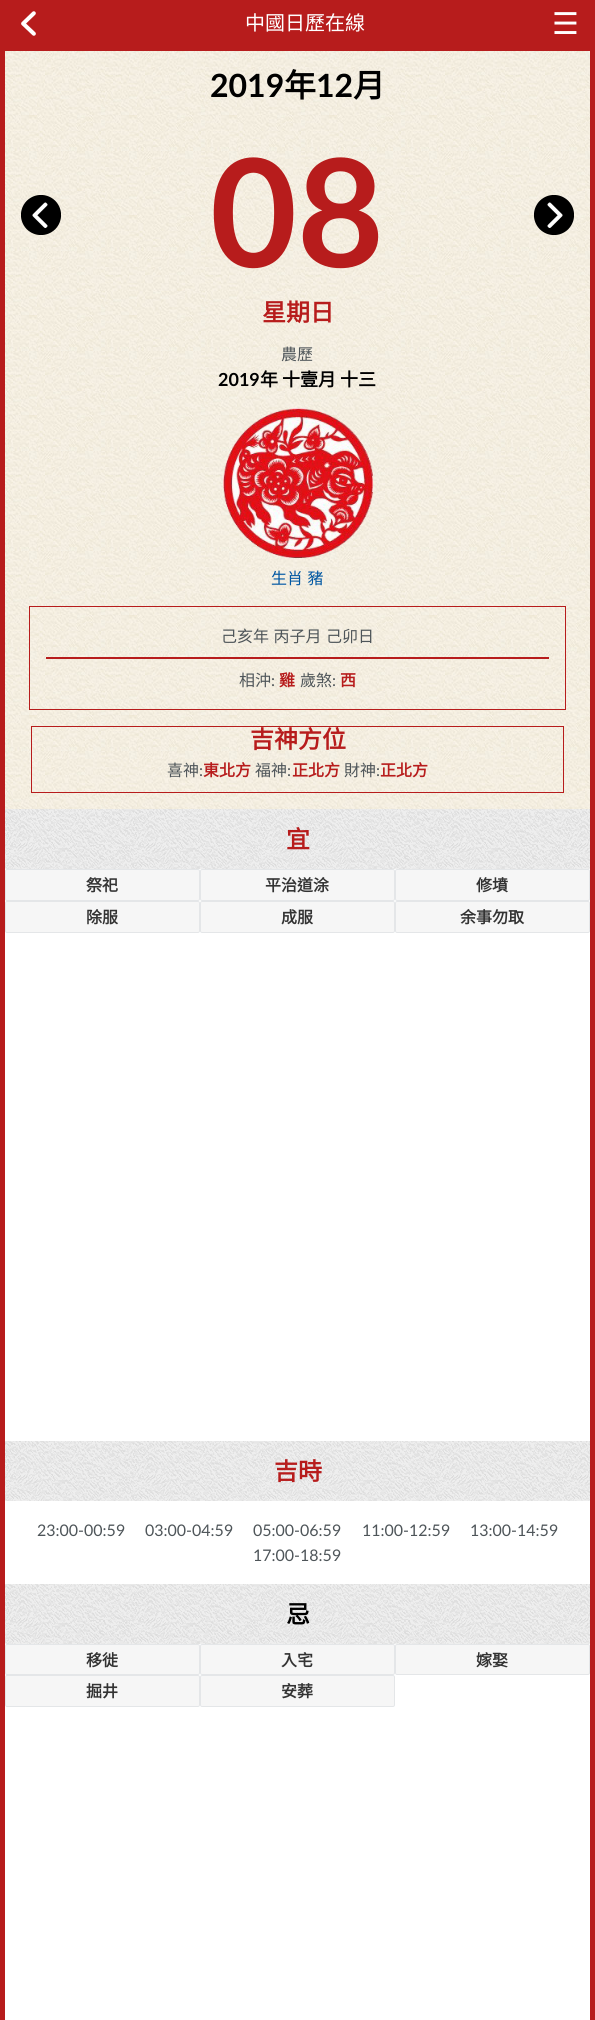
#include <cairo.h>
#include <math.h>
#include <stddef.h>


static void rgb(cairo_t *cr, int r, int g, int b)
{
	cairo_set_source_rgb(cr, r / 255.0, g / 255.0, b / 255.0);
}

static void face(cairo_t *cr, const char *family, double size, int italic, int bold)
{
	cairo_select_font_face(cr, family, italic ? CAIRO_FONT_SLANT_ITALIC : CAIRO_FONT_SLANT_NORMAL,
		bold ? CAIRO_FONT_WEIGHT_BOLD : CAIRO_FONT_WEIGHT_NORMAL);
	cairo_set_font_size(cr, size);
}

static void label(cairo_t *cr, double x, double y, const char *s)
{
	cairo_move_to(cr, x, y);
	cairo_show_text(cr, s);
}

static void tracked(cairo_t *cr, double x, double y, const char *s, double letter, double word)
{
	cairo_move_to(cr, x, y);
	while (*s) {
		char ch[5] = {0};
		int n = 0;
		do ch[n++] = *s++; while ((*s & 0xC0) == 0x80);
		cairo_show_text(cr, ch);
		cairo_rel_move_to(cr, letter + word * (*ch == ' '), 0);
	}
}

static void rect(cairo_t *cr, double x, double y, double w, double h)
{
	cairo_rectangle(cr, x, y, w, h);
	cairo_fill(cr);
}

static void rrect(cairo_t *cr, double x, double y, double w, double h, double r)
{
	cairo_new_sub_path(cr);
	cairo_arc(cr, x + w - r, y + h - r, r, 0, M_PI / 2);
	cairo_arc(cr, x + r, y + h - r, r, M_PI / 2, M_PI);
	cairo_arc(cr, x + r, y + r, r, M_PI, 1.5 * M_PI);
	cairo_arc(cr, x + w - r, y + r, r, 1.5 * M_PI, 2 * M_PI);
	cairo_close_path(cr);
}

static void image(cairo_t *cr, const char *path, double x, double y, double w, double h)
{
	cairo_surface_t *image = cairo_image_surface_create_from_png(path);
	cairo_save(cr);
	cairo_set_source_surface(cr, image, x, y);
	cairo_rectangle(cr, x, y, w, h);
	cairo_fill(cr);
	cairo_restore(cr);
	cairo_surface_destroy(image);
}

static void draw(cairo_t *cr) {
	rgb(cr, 255, 255, 255);
	cairo_paint(cr);
	rgb(cr, 183, 28, 28);
	rect(cr, 0, 0, 595, 46);
	image(cr, "image0.png", 21, 11, 15, 25);
	face(cr, "Noto Sans CJK HK", 20, 0, 0);
	rgb(cr, 255, 255, 255);
	label(cr, 245, 30, "中國日歷在線");
	face(cr, "DejaVu Sans", 30, 0, 0);
	label(cr, 552, 34, "☰");
	cairo_rectangle(cr, 2.5, 48.5, 590, 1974);
	rgb(cr, 183, 28, 28);
	cairo_set_line_width(cr, 5);
	cairo_stroke(cr);
	image(cr, "image1.png", 5, 51, 585, 758);
	face(cr, "Lato", 32, 0, 1);
	rgb(cr, 0, 0, 0);
	label(cr, 210, 97, "2019");
	face(cr, "Noto Sans CJK HK", 32, 0, 1);
	label(cr, 284, 97, "年");
	face(cr, "Lato", 32, 0, 1);
	label(cr, 316, 97, "12");
	face(cr, "Noto Sans CJK HK", 32, 0, 1);
	label(cr, 353, 97, "月");
	image(cr, "image2.png", 21, 195, 40, 40);
	face(cr, "Lato", 150, 0, 1);
	rgb(cr, 183, 28, 28);
	label(cr, 210, 267, "08");
	image(cr, "image3.png", 534, 195, 40, 40);
	face(cr, "Noto Sans CJK HK", 24, 0, 1);
	label(cr, 262, 321, "星期日");
	face(cr, "Noto Sans CJK HK", 16, 0, 0);
	rgb(cr, 78, 85, 89);
	label(cr, 281, 360, "農歷");
	face(cr, "Lato", 18, 0, 1);
	rgb(cr, 0, 0, 0);
	label(cr, 218, 386, "2019");
	face(cr, "Noto Sans CJK HK", 18, 0, 1);
	label(cr, 260, 386, "年 十壹月 十三");
	image(cr, "image4.png", 223, 408, 150, 150);
	face(cr, "Noto Sans CJK HK", 16, 0, 0);
	rgb(cr, 0, 87, 162);
	tracked(cr, 271, 584, "生肖 豬", 0, 1);
	cairo_rectangle(cr, 29.5, 606.5, 536, 103);
	rgb(cr, 183, 28, 28);
	cairo_set_line_width(cr, 1);
	cairo_stroke(cr);
	rgb(cr, 78, 85, 89);
	tracked(cr, 221, 642, "己亥年 丙子月", 0, 1);
	label(cr, 326, 642, "己卯日");
	rgb(cr, 183, 28, 28);
	rect(cr, 46, 657, 503, 2);
	rgb(cr, 78, 85, 89);
	label(cr, 239, 686, "相沖");
	face(cr, "Lato", 16, 0, 0);
	label(cr, 271, 686, ":");
	face(cr, "Noto Sans CJK HK", 16, 0, 1);
	rgb(cr, 183, 28, 28);
	label(cr, 279, 686, "雞");
	face(cr, "Noto Sans CJK HK", 16, 0, 0);
	rgb(cr, 78, 85, 89);
	label(cr, 300, 686, "歲煞");
	face(cr, "Lato", 16, 0, 0);
	label(cr, 332, 686, ":");
	face(cr, "Noto Sans CJK HK", 16, 0, 1);
	rgb(cr, 183, 28, 28);
	label(cr, 340, 686, "西");
	cairo_rectangle(cr, 31.5, 726.5, 532, 66);
	cairo_stroke(cr);
	face(cr, "Noto Sans CJK HK", 24, 0, 1);
	label(cr, 250, 748, "吉神方位");
	face(cr, "Noto Sans CJK HK", 16, 0, 0);
	rgb(cr, 78, 85, 89);
	label(cr, 167, 776, "喜神");
	face(cr, "Lato", 16, 0, 0);
	label(cr, 199, 776, ":");
	face(cr, "Noto Sans CJK HK", 16, 0, 1);
	rgb(cr, 183, 28, 28);
	label(cr, 203, 776, "東北方");
	face(cr, "Noto Sans CJK HK", 16, 0, 0);
	rgb(cr, 78, 85, 89);
	label(cr, 255, 776, "福神");
	face(cr, "Lato", 16, 0, 0);
	label(cr, 287, 776, ":");
	face(cr, "Noto Sans CJK HK", 16, 0, 1);
	rgb(cr, 183, 28, 28);
	label(cr, 292, 776, "正北方");
	face(cr, "Noto Sans CJK HK", 16, 0, 0);
	rgb(cr, 78, 85, 89);
	label(cr, 344, 776, "財神");
	face(cr, "Lato", 16, 0, 0);
	label(cr, 376, 776, ":");
	face(cr, "Noto Sans CJK HK", 16, 0, 1);
	rgb(cr, 183, 28, 28);
	label(cr, 380, 776, "正北方");
	image(cr, "image5.png", 5, 809, 585, 60);
	face(cr, "Noto Sans CJK HK", 24, 0, 1);
	label(cr, 286, 848, "宜");
	rgb(cr, 246, 246, 246);
	rrect(cr, 5.5, 869.5, 194, 31, 1.5);
	cairo_fill_preserve(cr);
	rgb(cr, 228, 230, 232);
	cairo_stroke(cr);
	face(cr, "Noto Sans CJK HK", 16, 0, 1);
	rgb(cr, 51, 51, 51);
	label(cr, 86, 891, "祭祀");
	rgb(cr, 246, 246, 246);
	rrect(cr, 200.5, 869.5, 194, 31, 1.5);
	cairo_fill_preserve(cr);
	rgb(cr, 228, 230, 232);
	cairo_stroke(cr);
	rgb(cr, 51, 51, 51);
	label(cr, 265, 891, "平治道涂");
	rgb(cr, 246, 246, 246);
	rrect(cr, 395.5, 869.5, 194, 31, 1.5);
	cairo_fill_preserve(cr);
	rgb(cr, 228, 230, 232);
	cairo_stroke(cr);
	rgb(cr, 51, 51, 51);
	label(cr, 476, 891, "修墳");
	rgb(cr, 246, 246, 246);
	rrect(cr, 5.5, 901.5, 194, 31, 1.5);
	cairo_fill_preserve(cr);
	rgb(cr, 228, 230, 232);
	cairo_stroke(cr);
	rgb(cr, 51, 51, 51);
	label(cr, 86, 923, "除服");
	rgb(cr, 246, 246, 246);
	rrect(cr, 200.5, 901.5, 194, 31, 1.5);
	cairo_fill_preserve(cr);
	rgb(cr, 228, 230, 232);
	cairo_stroke(cr);
	rgb(cr, 51, 51, 51);
	label(cr, 281, 923, "成服");
	rgb(cr, 246, 246, 246);
	rrect(cr, 395.5, 901.5, 194, 31, 1.5);
	cairo_fill_preserve(cr);
	rgb(cr, 228, 230, 232);
	cairo_stroke(cr);
	rgb(cr, 51, 51, 51);
	label(cr, 460, 923, "余事勿取");
	image(cr, "image5.png", 5, 1441, 585, 60);
	face(cr, "Noto Sans CJK HK", 24, 0, 1);
	rgb(cr, 183, 28, 28);
	label(cr, 274, 1480, "吉時");
	face(cr, "Lato", 16, 0, 0);
	rgb(cr, 78, 85, 89);
	label(cr, 37, 1536, "23:00-00:59");
	label(cr, 145, 1536, "03:00-04:59");
	label(cr, 253, 1536, "05:00-06:59");
	label(cr, 362, 1536, "11:00-12:59");
	label(cr, 470, 1536, "13:00-14:59");
	label(cr, 253, 1561, "17:00-18:59");
	image(cr, "image5.png", 5, 1584, 585, 60);
	face(cr, "Noto Sans CJK HK", 24, 0, 1);
	rgb(cr, 0, 0, 0);
	label(cr, 286, 1623, "忌");
	rgb(cr, 246, 246, 246);
	rrect(cr, 5.5, 1644.5, 194, 30, 1.5);
	cairo_fill_preserve(cr);
	rgb(cr, 228, 230, 232);
	cairo_stroke(cr);
	face(cr, "Noto Sans CJK HK", 16, 0, 1);
	rgb(cr, 51, 51, 51);
	label(cr, 86, 1666, "移徙");
	rgb(cr, 246, 246, 246);
	rrect(cr, 200.5, 1644.5, 194, 30, 1.5);
	cairo_fill_preserve(cr);
	rgb(cr, 228, 230, 232);
	cairo_stroke(cr);
	rgb(cr, 51, 51, 51);
	label(cr, 281, 1666, "入宅");
	rgb(cr, 246, 246, 246);
	rrect(cr, 395.5, 1644.5, 194, 30, 1.5);
	cairo_fill_preserve(cr);
	rgb(cr, 228, 230, 232);
	cairo_stroke(cr);
	rgb(cr, 51, 51, 51);
	label(cr, 476, 1666, "嫁娶");
	rgb(cr, 246, 246, 246);
	rrect(cr, 5.5, 1675.5, 194, 31, 1.5);
	cairo_fill_preserve(cr);
	rgb(cr, 228, 230, 232);
	cairo_stroke(cr);
	rgb(cr, 51, 51, 51);
	label(cr, 86, 1697, "掘井");
	rgb(cr, 246, 246, 246);
	rrect(cr, 200.5, 1675.5, 194, 31, 1.5);
	cairo_fill_preserve(cr);
	rgb(cr, 228, 230, 232);
	cairo_stroke(cr);
	rgb(cr, 51, 51, 51);
	label(cr, 281, 1697, "安葬");
}

int main(void) {
	cairo_surface_t *surface = cairo_image_surface_create(CAIRO_FORMAT_RGB24, 595, 2020);
	cairo_t *cr = cairo_create(surface);
	cairo_font_options_t *options = cairo_font_options_create();
	cairo_font_options_set_hint_metrics(options, CAIRO_HINT_METRICS_OFF);
	cairo_font_options_set_hint_style(options, CAIRO_HINT_STYLE_NONE);
	cairo_set_font_options(cr, options);
	cairo_set_miter_limit(cr, 4);
	draw(cr);
	cairo_surface_write_to_png(surface, "render.png");
	cairo_font_options_destroy(options);
	cairo_destroy(cr);
	cairo_surface_destroy(surface);
	return 0;
}
